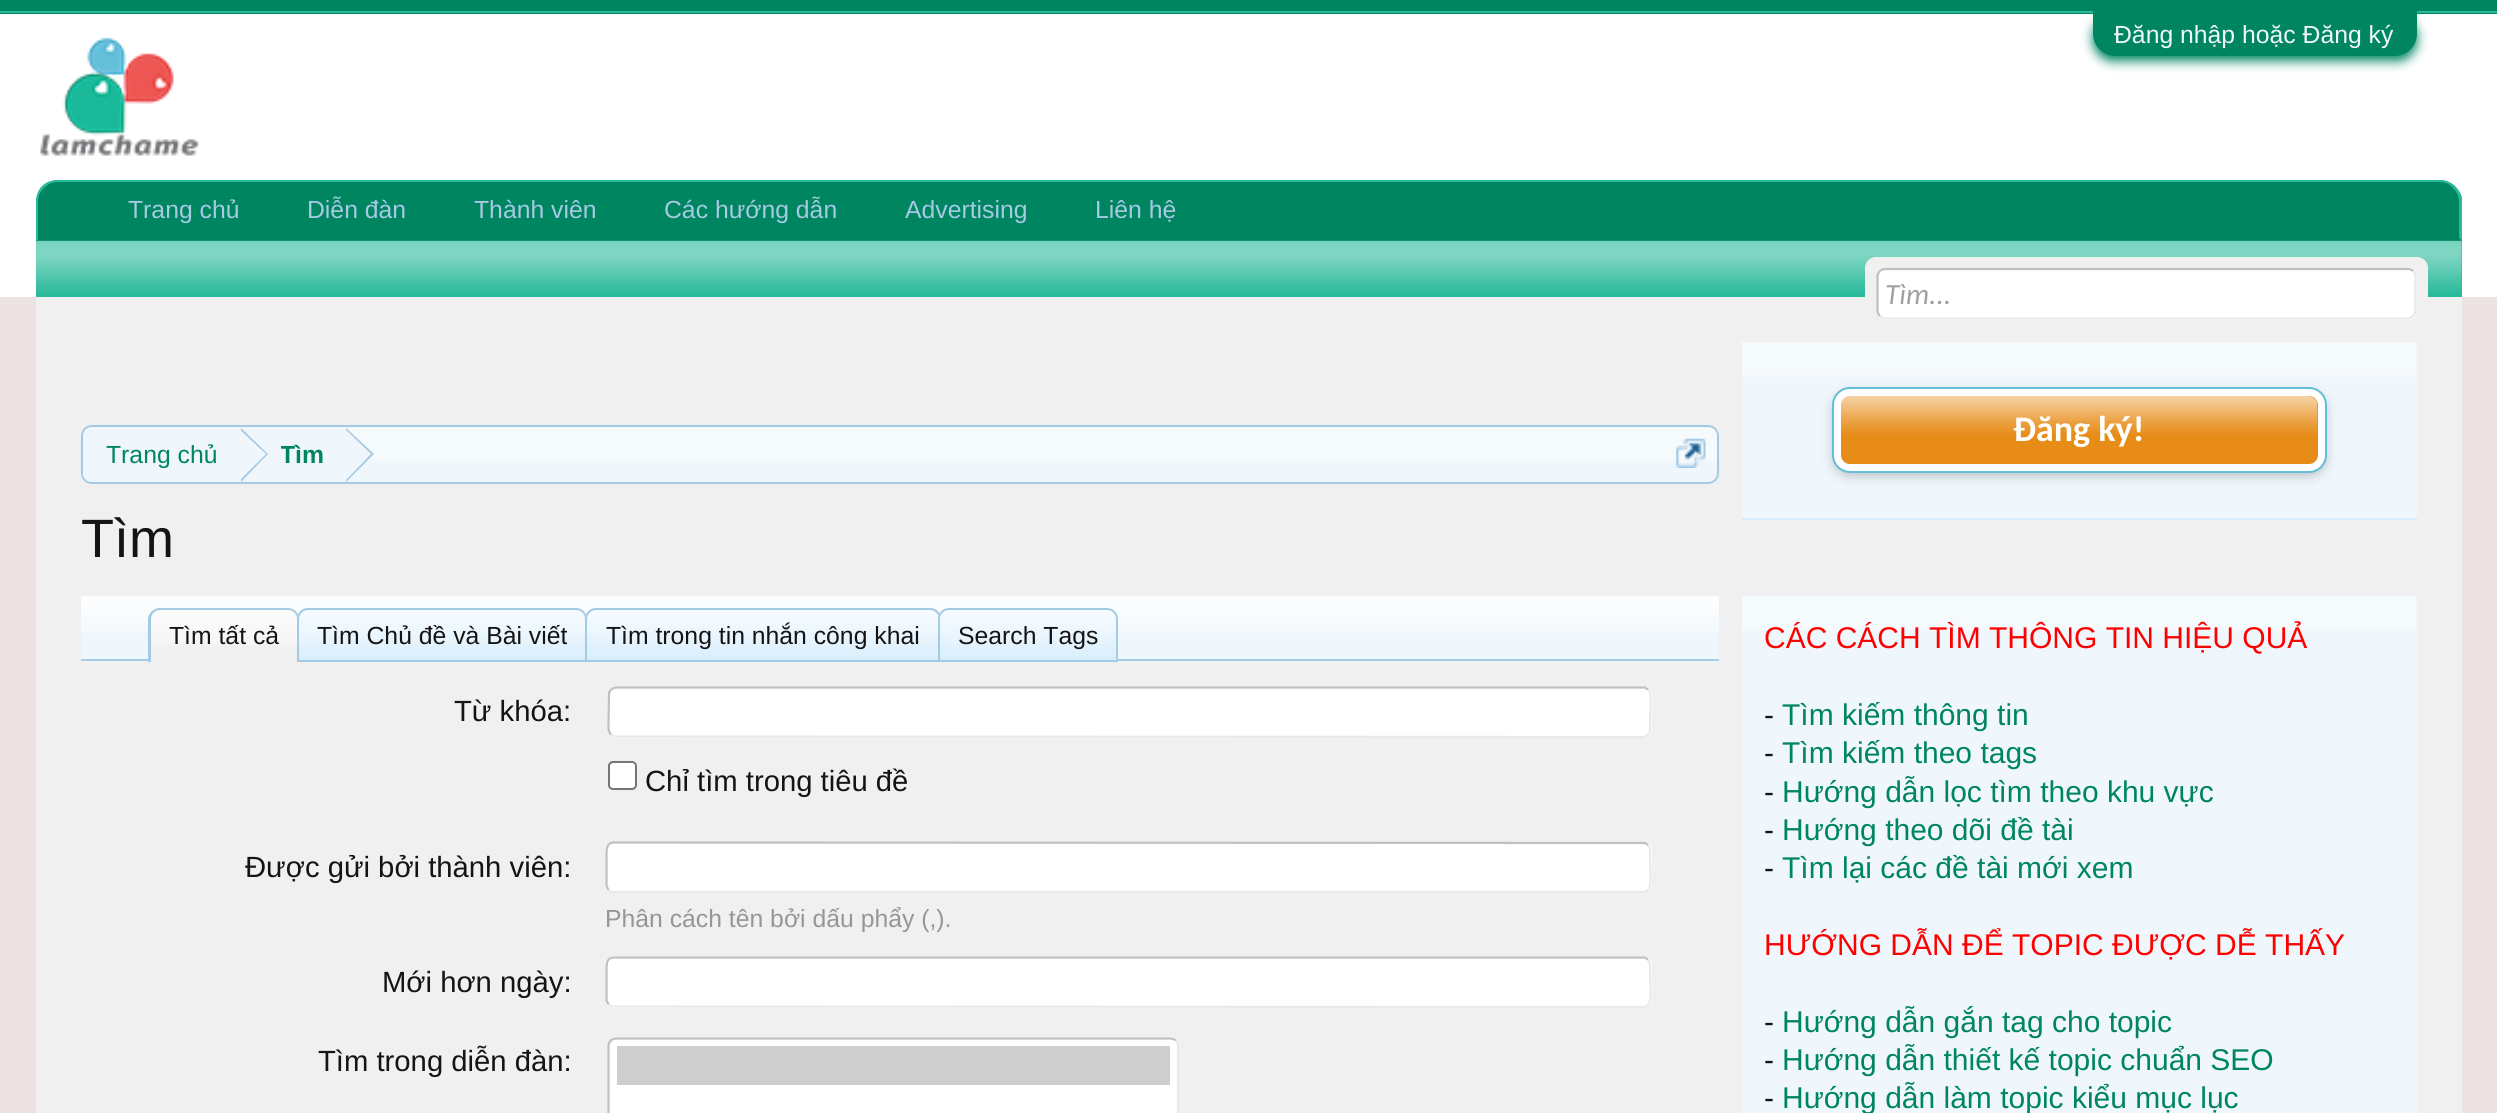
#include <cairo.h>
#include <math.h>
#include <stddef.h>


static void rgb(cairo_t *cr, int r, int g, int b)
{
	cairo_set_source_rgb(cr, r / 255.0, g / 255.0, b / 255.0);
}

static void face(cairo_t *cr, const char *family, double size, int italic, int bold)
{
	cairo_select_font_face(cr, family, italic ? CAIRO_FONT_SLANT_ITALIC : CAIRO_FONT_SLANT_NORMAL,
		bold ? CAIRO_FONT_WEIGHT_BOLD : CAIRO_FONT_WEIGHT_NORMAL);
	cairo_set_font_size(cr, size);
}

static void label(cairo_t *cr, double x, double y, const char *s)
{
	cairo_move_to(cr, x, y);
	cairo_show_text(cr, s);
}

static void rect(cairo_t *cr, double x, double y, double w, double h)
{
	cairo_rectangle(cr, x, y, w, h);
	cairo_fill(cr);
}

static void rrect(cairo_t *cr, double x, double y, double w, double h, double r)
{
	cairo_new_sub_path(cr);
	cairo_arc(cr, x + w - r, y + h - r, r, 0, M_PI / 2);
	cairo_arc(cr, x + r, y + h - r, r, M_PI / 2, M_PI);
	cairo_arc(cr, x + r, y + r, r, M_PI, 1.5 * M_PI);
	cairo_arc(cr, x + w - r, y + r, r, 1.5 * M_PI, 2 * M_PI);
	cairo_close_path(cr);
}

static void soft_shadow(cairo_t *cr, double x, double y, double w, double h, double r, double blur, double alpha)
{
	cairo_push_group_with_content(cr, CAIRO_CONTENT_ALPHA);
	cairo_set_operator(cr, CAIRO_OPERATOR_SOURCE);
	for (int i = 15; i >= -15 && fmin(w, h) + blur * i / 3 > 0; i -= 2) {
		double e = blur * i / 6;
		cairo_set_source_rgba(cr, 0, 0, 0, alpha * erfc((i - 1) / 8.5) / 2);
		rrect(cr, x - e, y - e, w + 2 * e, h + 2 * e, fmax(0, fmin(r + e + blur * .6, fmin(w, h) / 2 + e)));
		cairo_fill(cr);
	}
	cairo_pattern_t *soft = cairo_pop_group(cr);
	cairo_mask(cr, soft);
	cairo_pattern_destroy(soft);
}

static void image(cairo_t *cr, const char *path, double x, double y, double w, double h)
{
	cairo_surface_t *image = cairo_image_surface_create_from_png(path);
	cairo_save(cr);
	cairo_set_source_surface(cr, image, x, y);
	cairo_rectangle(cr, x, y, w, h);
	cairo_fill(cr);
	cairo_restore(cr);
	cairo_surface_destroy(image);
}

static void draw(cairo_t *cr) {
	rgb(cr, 236, 226, 226);
	cairo_paint(cr);
	rgb(cr, 0, 133, 97);
	rect(cr, 0, 0, 2497, 14);
	rgb(cr, 39, 185, 153);
	rect(cr, 0, 11, 2497, 2);
	rgb(cr, 255, 255, 255);
	rect(cr, 0, 14, 2497, 283);
	rgb(cr, 0, 133, 97);
	soft_shadow(cr, 2093, 16, 324, 45, 22.5, 5.5, 1);
	rgb(cr, 0, 133, 97);
	cairo_new_path(cr);
	cairo_move_to(cr, 2093, 11);
	cairo_line_to(cr, 2417, 11);
	cairo_line_to(cr, 2417, 33.5);
	cairo_curve_to(cr, 2417, 46, 2407, 56, 2394.5, 56);
	cairo_line_to(cr, 2115.5, 56);
	cairo_curve_to(cr, 2103, 56, 2093, 46, 2093, 33.5);
	cairo_close_path(cr);
	cairo_fill(cr);
	face(cr, "Liberation Sans", 24.75, 0, 0);
	rgb(cr, 240, 247, 252);
	label(cr, 2114, 43, "Đăng nhập hoặc Đăng ký");
	image(cr, "image0.png", 40, 37, 159, 119);
	rgb(cr, 0, 133, 97);
	cairo_new_path(cr);
	cairo_move_to(cr, 59, 180);
	cairo_line_to(cr, 2439, 180);
	cairo_curve_to(cr, 2451.5, 180, 2462, 190.5, 2462, 203);
	cairo_line_to(cr, 2462, 241);
	cairo_line_to(cr, 36, 241);
	cairo_line_to(cr, 36, 203);
	cairo_curve_to(cr, 36, 190.5, 46.5, 180, 59, 180);
	cairo_close_path(cr);
	cairo_fill(cr);
	rgb(cr, 39, 185, 153);
	cairo_new_path(cr);
	cairo_move_to(cr, 58, 180);
	cairo_curve_to(cr, 52, 180, 46, 182, 42, 186);
	cairo_line_to(cr, 44, 188);
	cairo_curve_to(cr, 48, 184, 52, 182, 58, 182);
	cairo_line_to(cr, 2439, 182);
	cairo_curve_to(cr, 2445, 182, 2450, 184, 2453, 188);
	cairo_line_to(cr, 2455, 186);
	cairo_curve_to(cr, 2451, 182, 2445, 180, 2439, 180);
	cairo_close_path(cr);
	cairo_fill(cr);
	cairo_new_path(cr);
	cairo_move_to(cr, 2455, 186);
	cairo_curve_to(cr, 2458, 189, 2461, 193, 2462, 198);
	cairo_line_to(cr, 2462, 241);
	cairo_line_to(cr, 2459, 238);
	cairo_line_to(cr, 2459, 202);
	cairo_curve_to(cr, 2459, 197, 2457, 192, 2453, 188);
	cairo_close_path(cr);
	cairo_fill(cr);
	rgb(cr, 0, 133, 97);
	cairo_new_path(cr);
	cairo_move_to(cr, 2462, 241);
	cairo_line_to(cr, 2459, 238);
	cairo_line_to(cr, 39, 238);
	cairo_line_to(cr, 36, 241);
	cairo_close_path(cr);
	cairo_fill(cr);
	rgb(cr, 39, 185, 153);
	cairo_new_path(cr);
	cairo_move_to(cr, 36, 241);
	cairo_line_to(cr, 39, 238);
	cairo_line_to(cr, 38, 238);
	cairo_line_to(cr, 38, 202);
	cairo_curve_to(cr, 38, 196, 40, 192, 44, 188);
	cairo_line_to(cr, 42, 186);
	cairo_curve_to(cr, 38, 190, 36, 196, 36, 202);
	cairo_close_path(cr);
	cairo_fill(cr);
	rgb(cr, 165, 202, 228);
	label(cr, 128, 218, "Trang chủ");
	label(cr, 307, 218, "Diễn đàn");
	label(cr, 474, 218, "Thành viên");
	label(cr, 664, 218, "Các hướng dẫn");
	label(cr, 905, 218, "Advertising");
	label(cr, 1095, 218, "Liên hệ");
	rgb(cr, 39, 185, 153);
	rect(cr, 36, 241, 2426, 56);
	image(cr, "image1.png", 36, 240, 2426, 54);
	rgb(cr, 240, 240, 240);
	rect(cr, 36, 297, 2426, 816);
	rrect(cr, 1865, 257, 563, 63, 11);
	cairo_fill(cr);
	rgb(cr, 255, 255, 255);
	rrect(cr, 1877, 268, 540, 52, 9);
	cairo_fill(cr);
	cairo_new_path(cr);
	cairo_move_to(cr, 2413, 271);
	cairo_curve_to(cr, 2414.5, 272.5, 2415.5, 274.5, 2415.5, 277);
	cairo_line_to(cr, 2415.5, 310.5);
	cairo_curve_to(cr, 2415.5, 312.5, 2414.5, 314.5, 2413, 316);
	cairo_curve_to(cr, 2411.5, 317.5, 2409.5, 318.5, 2407.5, 318.5);
	cairo_line_to(cr, 1885.5, 318.5);
	cairo_curve_to(cr, 1883.5, 318.5, 1881.5, 317.5, 1880, 316);
	rgb(cr, 233, 233, 233);
	cairo_set_line_width(cr, 2.2);
	cairo_stroke(cr);
	cairo_new_path(cr);
	cairo_move_to(cr, 1880, 316);
	cairo_curve_to(cr, 1878.5, 314.5, 1877.5, 312.5, 1877.5, 310.5);
	cairo_line_to(cr, 1877.5, 277);
	cairo_curve_to(cr, 1877.5, 274.5, 1878.5, 272.5, 1880, 271);
	cairo_curve_to(cr, 1881.5, 269.5, 1883.5, 269, 1885.5, 269);
	cairo_line_to(cr, 2407.5, 269);
	cairo_curve_to(cr, 2409.5, 269, 2411.5, 269.5, 2413, 271);
	rgb(cr, 192, 192, 192);
	cairo_stroke(cr);
	face(cr, "Carlito", 29.25, 1, 0);
	rgb(cr, 160, 160, 160);
	label(cr, 1885, 304, "Tìm...");
	rgb(cr, 240, 247, 252);
	rrect(cr, 81, 425, 1638, 59, 11);
	cairo_fill(cr);
	image(cr, "image2.png", 81, 428, 1638, 34);
	rrect(cr, 82, 426, 1636, 57, 10);
	rgb(cr, 165, 202, 228);
	cairo_set_line_width(cr, 2);
	cairo_stroke(cr);
	cairo_save(cr);
	rrect(cr, 83, 428, 1634, 54, 9);
	cairo_clip(cr);
	rgb(cr, 240, 247, 252);
	cairo_new_path(cr);
	cairo_move_to(cr, 94, 428);
	cairo_line_to(cr, 241, 428);
	cairo_line_to(cr, 241, 484);
	cairo_line_to(cr, 94, 484);
	cairo_curve_to(cr, 88, 484, 83, 479, 83, 473);
	cairo_line_to(cr, 83, 439);
	cairo_curve_to(cr, 83, 433, 88, 428, 94, 428);
	cairo_close_path(cr);
	cairo_fill(cr);
	cairo_restore(cr);
	face(cr, "Liberation Sans", 24.75, 0, 0);
	rgb(cr, 0, 133, 97);
	label(cr, 106, 463, "Trang chủ");
	rgb(cr, 240, 247, 252);
	rect(cr, 241, 428, 106, 34);
	rgb(cr, 165, 202, 228);
	cairo_new_path(cr);
	cairo_move_to(cr, 241, 482);
	cairo_line_to(cr, 241, 428);
	cairo_line_to(cr, 268, 454);
	cairo_close_path(cr);
	cairo_fill(cr);
	rgb(cr, 240, 247, 252);
	cairo_new_path(cr);
	cairo_move_to(cr, 238, 482);
	cairo_line_to(cr, 238, 428);
	cairo_line_to(cr, 266, 454);
	cairo_close_path(cr);
	cairo_fill(cr);
	cairo_save(cr);
	cairo_rectangle(cr, 281, 428, 43, 54);
	cairo_clip(cr);
	face(cr, "Liberation Sans", 24.75, 0, 1);
	rgb(cr, 0, 133, 97);
	label(cr, 280, 463, "Tìm");
	cairo_restore(cr);
	rgb(cr, 165, 202, 228);
	cairo_new_path(cr);
	cairo_move_to(cr, 346, 482);
	cairo_line_to(cr, 346, 428);
	cairo_line_to(cr, 374, 454);
	cairo_close_path(cr);
	cairo_fill(cr);
	rgb(cr, 240, 247, 252);
	cairo_new_path(cr);
	cairo_move_to(cr, 344, 482);
	cairo_line_to(cr, 344, 428);
	cairo_line_to(cr, 371, 454);
	cairo_close_path(cr);
	cairo_fill(cr);
	image(cr, "image3.png", 1676, 438, 30, 30);
	face(cr, "Liberation Sans", 54, 0, 0);
	rgb(cr, 20, 20, 20);
	label(cr, 81, 557, "Tìm");
	rgb(cr, 240, 247, 252);
	rect(cr, 81, 596, 1638, 66);
	image(cr, "image4.png", 81, 596, 1638, 37);
	rgb(cr, 165, 202, 228);
	rect(cr, 81, 659, 1638, 2);
	rgb(cr, 240, 240, 240);
	cairo_new_path(cr);
	cairo_move_to(cr, 160, 608);
	cairo_line_to(cr, 288, 608);
	cairo_curve_to(cr, 294, 608, 299, 613, 299, 619);
	cairo_line_to(cr, 299, 662);
	cairo_line_to(cr, 149, 662);
	cairo_line_to(cr, 149, 619);
	cairo_curve_to(cr, 149, 613, 154, 608, 160, 608);
	cairo_close_path(cr);
	cairo_fill(cr);
	image(cr, "image5.png", 149, 610, 150, 36);
	rgb(cr, 165, 202, 228);
	cairo_set_fill_rule(cr, CAIRO_FILL_RULE_EVEN_ODD);
	cairo_new_path(cr);
	cairo_move_to(cr, 160, 608);
	cairo_line_to(cr, 288, 608);
	cairo_curve_to(cr, 294, 608, 299, 613, 299, 619);
	cairo_line_to(cr, 299, 662);
	cairo_line_to(cr, 148, 662);
	cairo_line_to(cr, 148, 619);
	cairo_curve_to(cr, 148, 613, 154, 608, 160, 608);
	cairo_close_path(cr);
	cairo_move_to(cr, 160, 610);
	cairo_line_to(cr, 288, 610);
	cairo_curve_to(cr, 293, 610, 297, 614, 297, 619);
	cairo_line_to(cr, 297, 662);
	cairo_line_to(cr, 151, 662);
	cairo_line_to(cr, 151, 619);
	cairo_curve_to(cr, 151, 614, 155, 610, 160, 610);
	cairo_close_path(cr);
	cairo_fill(cr);
	face(cr, "Liberation Sans", 24.75, 0, 0);
	rgb(cr, 20, 20, 20);
	label(cr, 169, 644, "Tìm tất cả");
	rgb(cr, 215, 237, 252);
	cairo_new_path(cr);
	cairo_move_to(cr, 308, 608);
	cairo_line_to(cr, 576, 608);
	cairo_curve_to(cr, 582, 608, 587, 613, 587, 619);
	cairo_line_to(cr, 587, 662);
	cairo_line_to(cr, 297, 662);
	cairo_line_to(cr, 297, 619);
	cairo_curve_to(cr, 297, 613, 302, 608, 308, 608);
	cairo_close_path(cr);
	cairo_fill(cr);
	image(cr, "image6.png", 297, 609, 290, 48);
	cairo_new_path(cr);
	cairo_move_to(cr, 308, 609);
	cairo_line_to(cr, 576, 609);
	cairo_curve_to(cr, 581.5, 609, 586, 613.5, 586, 619);
	cairo_line_to(cr, 586, 661);
	cairo_line_to(cr, 298, 661);
	cairo_line_to(cr, 298, 619);
	cairo_curve_to(cr, 298, 613.5, 302.5, 609, 308, 609);
	cairo_close_path(cr);
	rgb(cr, 165, 202, 228);
	cairo_stroke(cr);
	rgb(cr, 20, 20, 20);
	label(cr, 317, 644, "Tìm Chủ đề và Bài viết");
	rgb(cr, 215, 237, 252);
	cairo_new_path(cr);
	cairo_move_to(cr, 596, 608);
	cairo_line_to(cr, 930, 608);
	cairo_curve_to(cr, 936, 608, 941, 613, 941, 619);
	cairo_line_to(cr, 941, 662);
	cairo_line_to(cr, 585, 662);
	cairo_line_to(cr, 585, 619);
	cairo_curve_to(cr, 585, 613, 590, 608, 596, 608);
	cairo_close_path(cr);
	cairo_fill(cr);
	image(cr, "image7.png", 585, 609, 355, 48);
	cairo_new_path(cr);
	cairo_move_to(cr, 596, 609);
	cairo_line_to(cr, 930, 609);
	cairo_curve_to(cr, 935.5, 609, 940, 613.5, 940, 619);
	cairo_line_to(cr, 940, 661);
	cairo_line_to(cr, 586, 661);
	cairo_line_to(cr, 586, 619);
	cairo_curve_to(cr, 586, 613.5, 590.5, 609, 596, 609);
	cairo_close_path(cr);
	rgb(cr, 165, 202, 228);
	cairo_stroke(cr);
	rgb(cr, 20, 20, 20);
	label(cr, 606, 644, "Tìm trong tin nhắn công khai");
	rgb(cr, 215, 237, 252);
	cairo_new_path(cr);
	cairo_move_to(cr, 949, 608);
	cairo_line_to(cr, 1107, 608);
	cairo_curve_to(cr, 1113, 608, 1118, 613, 1118, 619);
	cairo_line_to(cr, 1118, 662);
	cairo_line_to(cr, 938, 662);
	cairo_line_to(cr, 938, 619);
	cairo_curve_to(cr, 938, 613, 943, 608, 949, 608);
	cairo_close_path(cr);
	cairo_fill(cr);
	image(cr, "image8.png", 938, 609, 180, 48);
	cairo_new_path(cr);
	cairo_move_to(cr, 949, 609);
	cairo_line_to(cr, 1107, 609);
	cairo_curve_to(cr, 1112.5, 609, 1117, 613.5, 1117, 619);
	cairo_line_to(cr, 1117, 661);
	cairo_line_to(cr, 939, 661);
	cairo_line_to(cr, 939, 619);
	cairo_curve_to(cr, 939, 613.5, 943.5, 609, 949, 609);
	cairo_close_path(cr);
	rgb(cr, 165, 202, 228);
	cairo_stroke(cr);
	rgb(cr, 20, 20, 20);
	label(cr, 958, 644, "Search Tags");
	face(cr, "Liberation Sans", 29.25, 0, 0);
	label(cr, 454, 721, "Từ khóa:");
	rgb(cr, 255, 255, 255);
	rrect(cr, 608, 686, 1044, 52, 9);
	cairo_fill(cr);
	cairo_new_path(cr);
	cairo_move_to(cr, 1648, 689.5);
	cairo_curve_to(cr, 1651, 692.5, 1650.5, 697, 1650.5, 701);
	cairo_line_to(cr, 1650, 730.5);
	cairo_curve_to(cr, 1649.5, 734, 1646, 737, 1642.5, 737);
	cairo_line_to(cr, 614, 736.5);
	cairo_line_to(cr, 611, 734.5);
	rgb(cr, 233, 233, 233);
	cairo_set_line_width(cr, 2.2);
	cairo_stroke(cr);
	cairo_new_path(cr);
	cairo_move_to(cr, 611, 734.5);
	cairo_curve_to(cr, 608, 731.5, 608.5, 727.5, 608.5, 723.5);
	cairo_line_to(cr, 609, 693.5);
	cairo_curve_to(cr, 609.5, 690, 613, 687.5, 616.5, 687.5);
	cairo_line_to(cr, 1645, 687.5);
	cairo_line_to(cr, 1648, 689.5);
	rgb(cr, 192, 192, 192);
	cairo_stroke(cr);
	rgb(cr, 255, 255, 255);
	rrect(cr, 609, 762, 27, 27, 4);
	cairo_fill_preserve(cr);
	rgb(cr, 118, 118, 118);
	cairo_set_line_width(cr, 2);
	cairo_stroke(cr);
	rgb(cr, 20, 20, 20);
	label(cr, 645, 791, "Chỉ tìm trong tiêu đề");
	label(cr, 245, 877, "Được gửi bởi thành viên:");
	rgb(cr, 255, 255, 255);
	rrect(cr, 605, 842, 1047, 51, 9);
	cairo_fill(cr);
	cairo_new_path(cr);
	cairo_move_to(cr, 1648, 845);
	cairo_line_to(cr, 1650, 849);
	cairo_line_to(cr, 1650.5, 878.5);
	cairo_curve_to(cr, 1650.5, 884.5, 1650.5, 892, 1642.5, 892);
	cairo_line_to(cr, 612, 892);
	cairo_line_to(cr, 608.5, 890);
	rgb(cr, 233, 233, 233);
	cairo_set_line_width(cr, 2.2);
	cairo_stroke(cr);
	cairo_new_path(cr);
	cairo_move_to(cr, 608.5, 890);
	cairo_line_to(cr, 606.5, 886);
	cairo_line_to(cr, 606.5, 856);
	cairo_curve_to(cr, 606.5, 850.5, 606, 842.5, 614, 842.5);
	cairo_line_to(cr, 1645, 843);
	cairo_line_to(cr, 1648, 845);
	rgb(cr, 192, 192, 192);
	cairo_stroke(cr);
	face(cr, "Liberation Sans", 24.75, 0, 0);
	rgb(cr, 150, 150, 150);
	label(cr, 605, 927, "Phân cách tên bởi dấu phẩy (,).");
	face(cr, "Liberation Sans", 29.25, 0, 0);
	rgb(cr, 20, 20, 20);
	label(cr, 382, 992, "Mới hơn ngày:");
	rgb(cr, 255, 255, 255);
	rrect(cr, 605, 956, 1047, 52, 9);
	cairo_fill(cr);
	cairo_new_path(cr);
	cairo_move_to(cr, 1648, 959.5);
	cairo_line_to(cr, 1650, 963.5);
	cairo_line_to(cr, 1650.5, 993.5);
	cairo_curve_to(cr, 1650.5, 999, 1650.5, 1007, 1642.5, 1007);
	cairo_line_to(cr, 612, 1006.5);
	cairo_line_to(cr, 608.5, 1004.5);
	rgb(cr, 233, 233, 233);
	cairo_stroke(cr);
	cairo_new_path(cr);
	cairo_move_to(cr, 608.5, 1004.5);
	cairo_line_to(cr, 606.5, 1000.5);
	cairo_line_to(cr, 606.5, 971);
	cairo_curve_to(cr, 606.5, 965, 606, 957.5, 614, 957.5);
	cairo_line_to(cr, 1645, 957.5);
	cairo_line_to(cr, 1648, 959.5);
	rgb(cr, 192, 192, 192);
	cairo_stroke(cr);
	rgb(cr, 20, 20, 20);
	label(cr, 318, 1071, "Tìm trong diễn đàn:");
	rgb(cr, 255, 255, 255);
	rrect(cr, 608, 1037, 571, 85, 9);
	cairo_fill(cr);
	cairo_new_path(cr);
	cairo_move_to(cr, 1175.5, 1040.5);
	cairo_curve_to(cr, 1177, 1042, 1178, 1044, 1178, 1046);
	cairo_line_to(cr, 1178, 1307);
	cairo_curve_to(cr, 1178, 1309.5, 1177, 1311.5, 1175.5, 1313);
	cairo_curve_to(cr, 1174, 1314.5, 1172, 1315, 1170, 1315);
	cairo_line_to(cr, 616.5, 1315);
	cairo_curve_to(cr, 614.5, 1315, 612.5, 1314.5, 611, 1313);
	rgb(cr, 233, 233, 233);
	cairo_stroke(cr);
	cairo_new_path(cr);
	cairo_move_to(cr, 611, 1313);
	cairo_curve_to(cr, 609.5, 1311.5, 608.5, 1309.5, 608.5, 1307);
	cairo_line_to(cr, 608.5, 1046);
	cairo_curve_to(cr, 608.5, 1044, 609.5, 1042, 611, 1040.5);
	cairo_curve_to(cr, 612.5, 1039, 614.5, 1038.5, 616.5, 1038.5);
	cairo_line_to(cr, 1170, 1038.5);
	cairo_curve_to(cr, 1172, 1038.5, 1174, 1039, 1175.5, 1040.5);
	rgb(cr, 192, 192, 192);
	cairo_stroke(cr);
	rgb(cr, 206, 206, 206);
	rect(cr, 617, 1046, 553, 39);
	rgb(cr, 240, 247, 252);
	rect(cr, 1742, 342, 675, 176);
	image(cr, "image9.png", 1742, 342, 674, 35);
	rgb(cr, 215, 237, 252);
	rect(cr, 1742, 518, 675, 2);
	rgb(cr, 0, 0, 0);
	soft_shadow(cr, 1832, 392, 495, 85, 18, 5.5, 0.2);
	rgb(cr, 255, 255, 255);
	rrect(cr, 1833, 388, 493, 84, 17);
	cairo_fill_preserve(cr);
	rgb(cr, 100, 190, 215);
	cairo_set_line_width(cr, 2);
	cairo_stroke(cr);
	rgb(cr, 230, 140, 23);
	rrect(cr, 1841, 396, 477, 68, 9);
	cairo_fill(cr);
	image(cr, "image10.png", 1841, 396, 477, 39);
	face(cr, "Carlito", 36, 0, 1);
	rgb(cr, 255, 255, 255);
	label(cr, 2013, 441, "Đăng ký!");
	rgb(cr, 240, 247, 252);
	rect(cr, 1742, 596, 675, 517);
	image(cr, "image11.png", 1742, 597, 674, 34);
	face(cr, "Liberation Sans", 30, 0, 0);
	rgb(cr, 255, 0, 0);
	label(cr, 1764, 648, "CÁC CÁCH TÌM THÔNG TIN HIỆU QUẢ");
	rgb(cr, 20, 20, 20);
	label(cr, 1764, 725, "-");
	rgb(cr, 0, 133, 97);
	label(cr, 1782, 725, "Tìm kiếm thông tin");
	rgb(cr, 20, 20, 20);
	label(cr, 1764, 763, "-");
	rgb(cr, 0, 133, 97);
	label(cr, 1782, 763, "Tìm kiếm theo tags");
	rgb(cr, 20, 20, 20);
	label(cr, 1764, 802, "-");
	rgb(cr, 0, 133, 97);
	label(cr, 1782, 802, "Hướng dẫn lọc tìm theo khu vực");
	rgb(cr, 20, 20, 20);
	label(cr, 1764, 840, "-");
	rgb(cr, 0, 133, 97);
	label(cr, 1782, 840, "Hướng theo dõi đề tài");
	rgb(cr, 20, 20, 20);
	label(cr, 1764, 878, "-");
	rgb(cr, 0, 133, 97);
	label(cr, 1782, 878, "Tìm lại các đề tài mới xem");
	rgb(cr, 255, 0, 0);
	label(cr, 1764, 955, "HƯỚNG DẪN ĐỂ TOPIC ĐƯỢC DỄ THẤY");
	rgb(cr, 20, 20, 20);
	label(cr, 1764, 1032, "-");
	rgb(cr, 0, 133, 97);
	label(cr, 1782, 1032, "Hướng dẫn gắn tag cho topic");
	rgb(cr, 20, 20, 20);
	label(cr, 1764, 1070, "-");
	rgb(cr, 0, 133, 97);
	label(cr, 1782, 1070, "Hướng dẫn thiết kế topic chuẩn SEO");
	rgb(cr, 20, 20, 20);
	label(cr, 1764, 1108, "-");
	rgb(cr, 0, 133, 97);
	label(cr, 1782, 1108, "Hướng dẫn làm topic kiểu mục lục");
}

int main(void) {
	cairo_surface_t *surface = cairo_image_surface_create(CAIRO_FORMAT_RGB24, 2497, 1113);
	cairo_t *cr = cairo_create(surface);
	cairo_font_options_t *options = cairo_font_options_create();
	cairo_font_options_set_hint_metrics(options, CAIRO_HINT_METRICS_OFF);
	cairo_font_options_set_hint_style(options, CAIRO_HINT_STYLE_NONE);
	cairo_set_font_options(cr, options);
	cairo_set_miter_limit(cr, 4);
	draw(cr);
	cairo_surface_write_to_png(surface, "render.png");
	cairo_font_options_destroy(options);
	cairo_destroy(cr);
	cairo_surface_destroy(surface);
	return 0;
}
